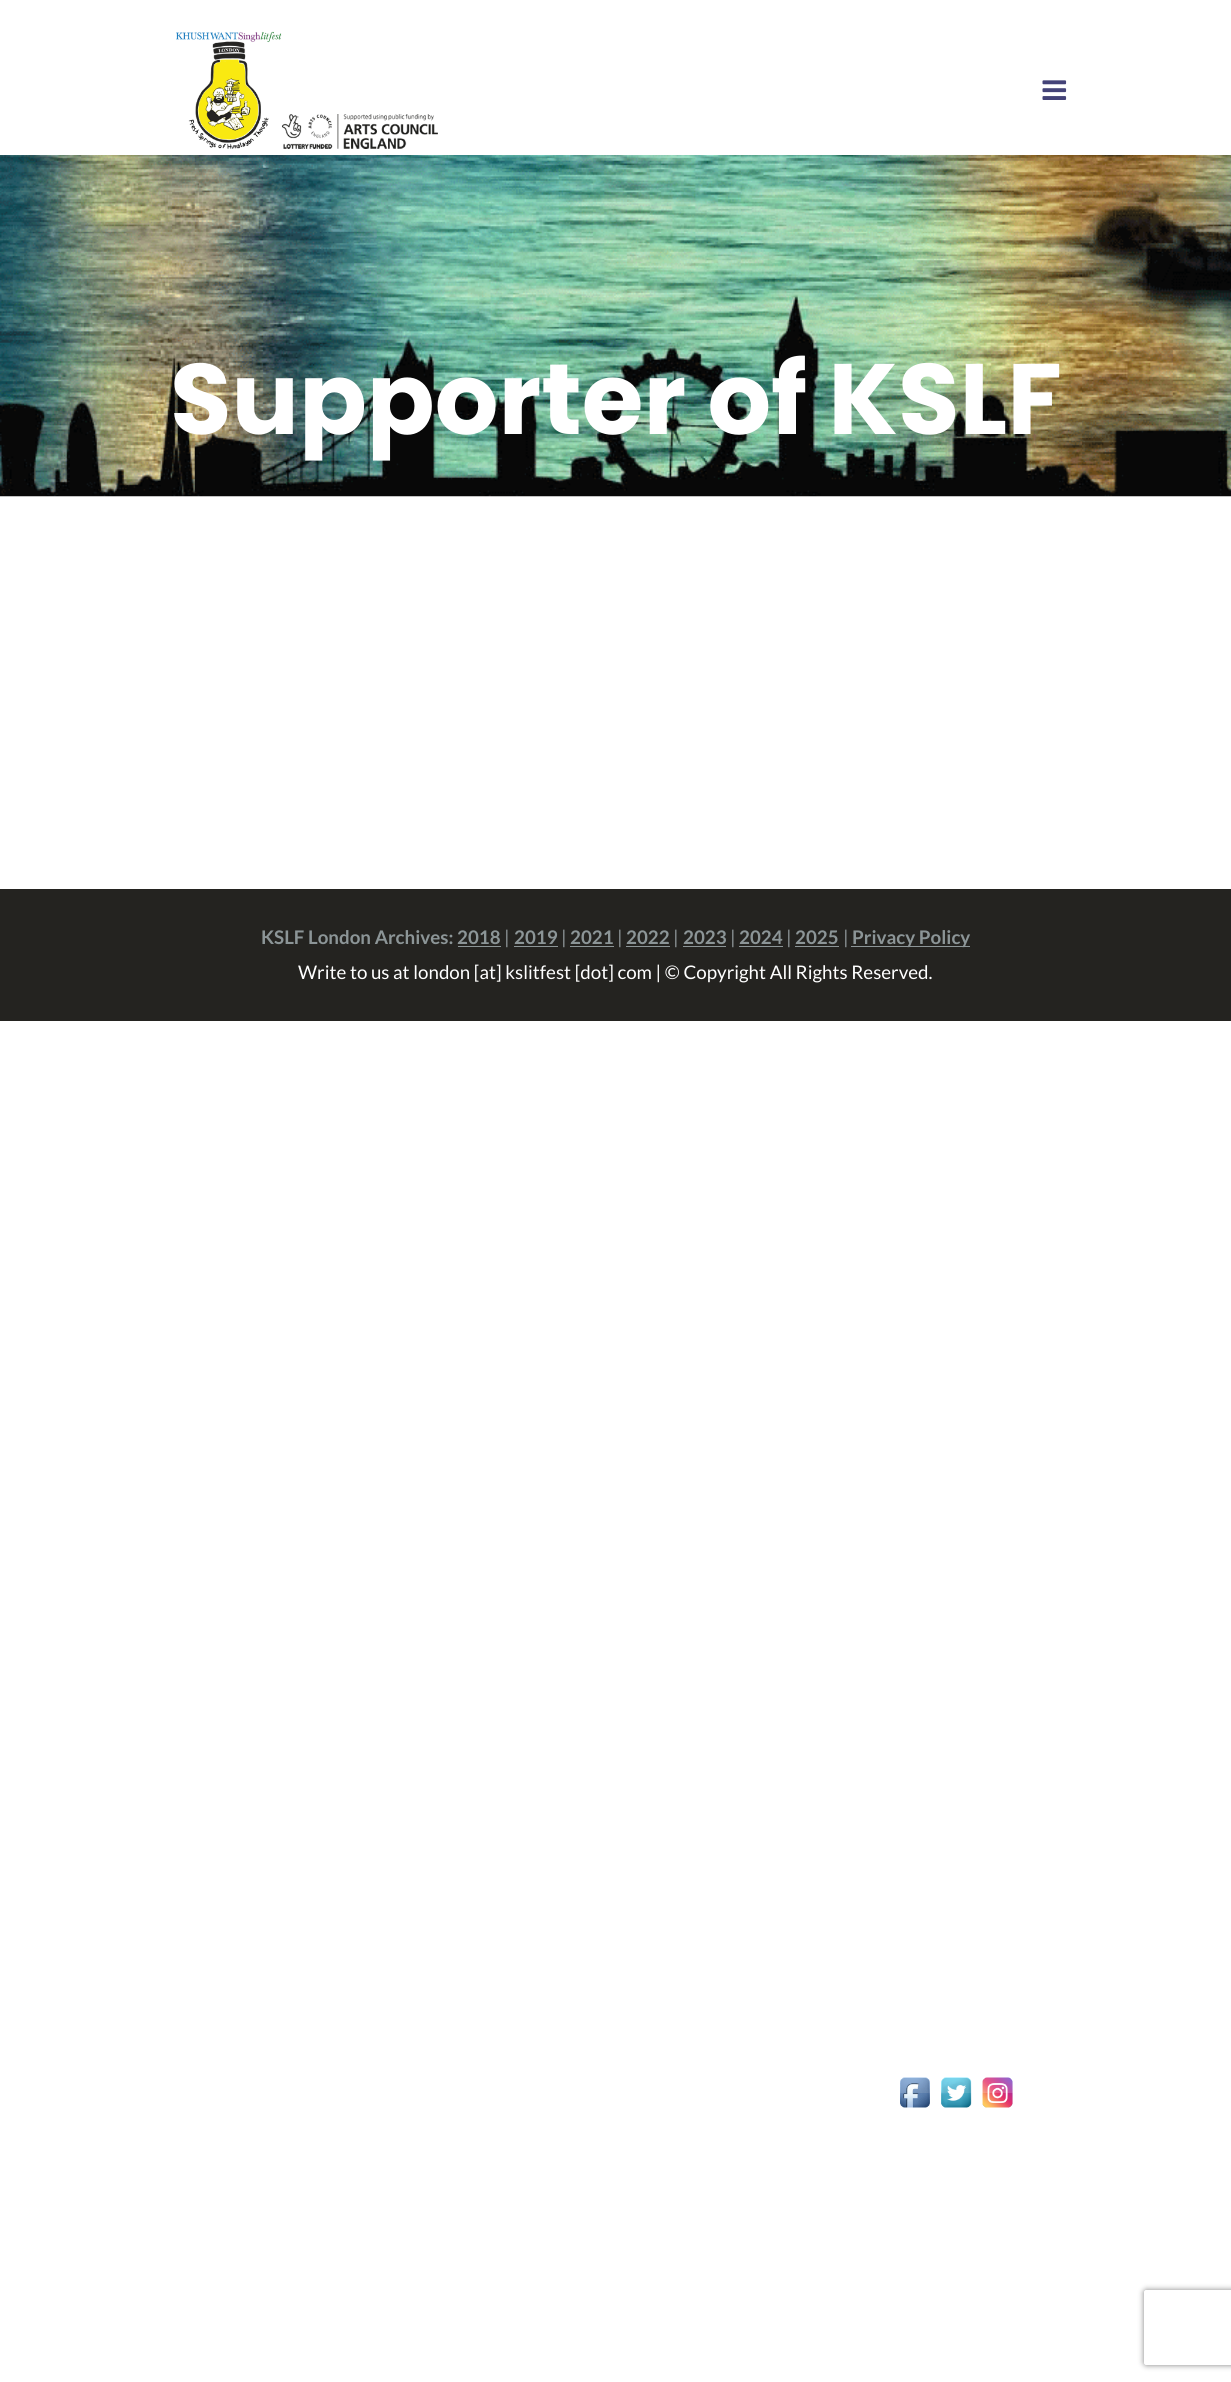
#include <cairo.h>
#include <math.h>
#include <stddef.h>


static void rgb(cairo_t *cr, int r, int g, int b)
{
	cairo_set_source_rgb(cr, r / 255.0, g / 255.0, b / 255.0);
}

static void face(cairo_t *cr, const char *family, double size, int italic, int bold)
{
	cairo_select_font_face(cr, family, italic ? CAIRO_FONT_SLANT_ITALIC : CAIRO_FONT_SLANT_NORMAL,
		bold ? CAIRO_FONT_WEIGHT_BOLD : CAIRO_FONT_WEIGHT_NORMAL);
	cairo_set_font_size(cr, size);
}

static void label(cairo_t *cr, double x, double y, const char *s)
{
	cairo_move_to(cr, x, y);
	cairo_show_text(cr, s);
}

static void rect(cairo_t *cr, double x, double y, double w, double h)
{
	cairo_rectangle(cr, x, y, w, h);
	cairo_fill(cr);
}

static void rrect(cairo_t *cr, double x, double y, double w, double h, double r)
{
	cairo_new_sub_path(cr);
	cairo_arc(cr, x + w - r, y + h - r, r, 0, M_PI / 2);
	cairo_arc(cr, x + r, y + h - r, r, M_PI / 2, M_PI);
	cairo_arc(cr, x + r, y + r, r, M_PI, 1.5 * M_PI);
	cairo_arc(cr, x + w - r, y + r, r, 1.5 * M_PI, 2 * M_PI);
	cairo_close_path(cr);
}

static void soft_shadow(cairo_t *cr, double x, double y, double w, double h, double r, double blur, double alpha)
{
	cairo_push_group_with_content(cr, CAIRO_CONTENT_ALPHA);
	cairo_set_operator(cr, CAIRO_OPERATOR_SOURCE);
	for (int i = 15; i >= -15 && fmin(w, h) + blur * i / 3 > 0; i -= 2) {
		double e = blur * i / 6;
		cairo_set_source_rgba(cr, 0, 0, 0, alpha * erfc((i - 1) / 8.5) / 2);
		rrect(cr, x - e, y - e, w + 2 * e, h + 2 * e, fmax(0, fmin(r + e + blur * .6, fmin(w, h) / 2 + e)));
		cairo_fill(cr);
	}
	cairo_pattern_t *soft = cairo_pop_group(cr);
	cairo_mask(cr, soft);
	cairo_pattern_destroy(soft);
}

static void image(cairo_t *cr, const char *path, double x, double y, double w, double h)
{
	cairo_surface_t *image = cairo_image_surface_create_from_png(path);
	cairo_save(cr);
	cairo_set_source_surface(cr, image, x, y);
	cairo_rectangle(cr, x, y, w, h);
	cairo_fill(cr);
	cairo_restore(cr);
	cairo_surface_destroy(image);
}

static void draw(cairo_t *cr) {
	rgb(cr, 255, 255, 255);
	cairo_paint(cr);
	image(cr, "image0.png", 0, 155, 1231, 342);
	image(cr, "image1.png", 176, 31, 262, 118);
	image(cr, "image2.png", 1042, 80, 25, 20);
	face(cr, "Poppins", 100, 0, 1);
	rgb(cr, 255, 255, 255);
	label(cr, 170, 434, "Supporter of KSLF");
	rgb(cr, 36, 35, 32);
	rect(cr, 0, 889, 1231, 132);
	face(cr, "Lato", 18.75, 0, 1);
	rgb(cr, 140, 149, 151);
	label(cr, 261, 944, "KSLF London Archives: 2018");
	rect(cr, 458, 946, 43, 1);
	face(cr, "Lato", 18.75, 0, 0);
	label(cr, 504, 944, "|");
	face(cr, "Lato", 18.75, 0, 1);
	label(cr, 514, 944, "2019");
	rect(cr, 514, 946, 44, 1);
	face(cr, "Lato", 18.75, 0, 0);
	label(cr, 561, 944, "|");
	face(cr, "Lato", 18.75, 0, 1);
	label(cr, 570, 944, "2021");
	rect(cr, 570, 946, 44, 1);
	face(cr, "Lato", 18.75, 0, 0);
	label(cr, 617, 944, "|");
	face(cr, "Lato", 18.75, 0, 1);
	label(cr, 626, 944, "2022");
	rect(cr, 626, 946, 44, 1);
	face(cr, "Lato", 18.75, 0, 0);
	label(cr, 673, 944, "|");
	face(cr, "Lato", 18.75, 0, 1);
	label(cr, 683, 944, "2023");
	rect(cr, 683, 946, 43, 1);
	face(cr, "Lato", 18.75, 0, 0);
	label(cr, 730, 944, "|");
	face(cr, "Lato", 18.75, 0, 1);
	label(cr, 739, 944, "2024");
	rect(cr, 739, 946, 44, 1);
	face(cr, "Lato", 18.75, 0, 0);
	label(cr, 786, 944, "|");
	face(cr, "Lato", 18.75, 0, 1);
	label(cr, 795, 944, "2025");
	rect(cr, 795, 946, 44, 1);
	face(cr, "Lato", 18.75, 0, 0);
	label(cr, 843, 944, "|");
	rect(cr, 851, 946, 119, 1);
	face(cr, "Lato", 18.75, 0, 1);
	label(cr, 852, 944, "Privacy Policy");
	face(cr, "Lato", 18.75, 0, 0);
	rgb(cr, 255, 255, 255);
	label(cr, 298, 979, "Write to us at london [at] kslitfest [dot] com | © Copyright All Rights Reserved.");
	image(cr, "image3.png", 900, 2077, 30, 31);
	image(cr, "image4.png", 941, 2077, 31, 31);
	image(cr, "image5.png", 982, 2077, 31, 31);
	cairo_save(cr);
	cairo_set_fill_rule(cr, CAIRO_FILL_RULE_EVEN_ODD);
	cairo_new_path(cr);
	cairo_move_to(cr, 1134, 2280);
	cairo_line_to(cr, 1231, 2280);
	cairo_line_to(cr, 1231, 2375);
	cairo_line_to(cr, 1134, 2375);
	cairo_close_path(cr);
	cairo_move_to(cr, 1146.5, 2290);
	cairo_line_to(cr, 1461.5, 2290);
	cairo_curve_to(cr, 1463, 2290, 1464, 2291, 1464, 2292.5);
	cairo_line_to(cr, 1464, 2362.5);
	cairo_curve_to(cr, 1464, 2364, 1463, 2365, 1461.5, 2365);
	cairo_line_to(cr, 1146.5, 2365);
	cairo_curve_to(cr, 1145, 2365, 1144, 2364, 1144, 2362.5);
	cairo_line_to(cr, 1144, 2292.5);
	cairo_curve_to(cr, 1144, 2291, 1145, 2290, 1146.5, 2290);
	cairo_close_path(cr);
	cairo_clip(cr);
	rgb(cr, 128, 128, 128);
	soft_shadow(cr, 1144, 2290, 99, 75, 2.5, 3, 1);
	cairo_restore(cr);
}

int main(void) {
	cairo_surface_t *surface = cairo_image_surface_create(CAIRO_FORMAT_RGB24, 1231, 2382);
	cairo_t *cr = cairo_create(surface);
	cairo_font_options_t *options = cairo_font_options_create();
	cairo_font_options_set_hint_metrics(options, CAIRO_HINT_METRICS_OFF);
	cairo_font_options_set_hint_style(options, CAIRO_HINT_STYLE_NONE);
	cairo_set_font_options(cr, options);
	cairo_set_miter_limit(cr, 4);
	draw(cr);
	cairo_surface_write_to_png(surface, "render.png");
	cairo_font_options_destroy(options);
	cairo_destroy(cr);
	cairo_surface_destroy(surface);
	return 0;
}
